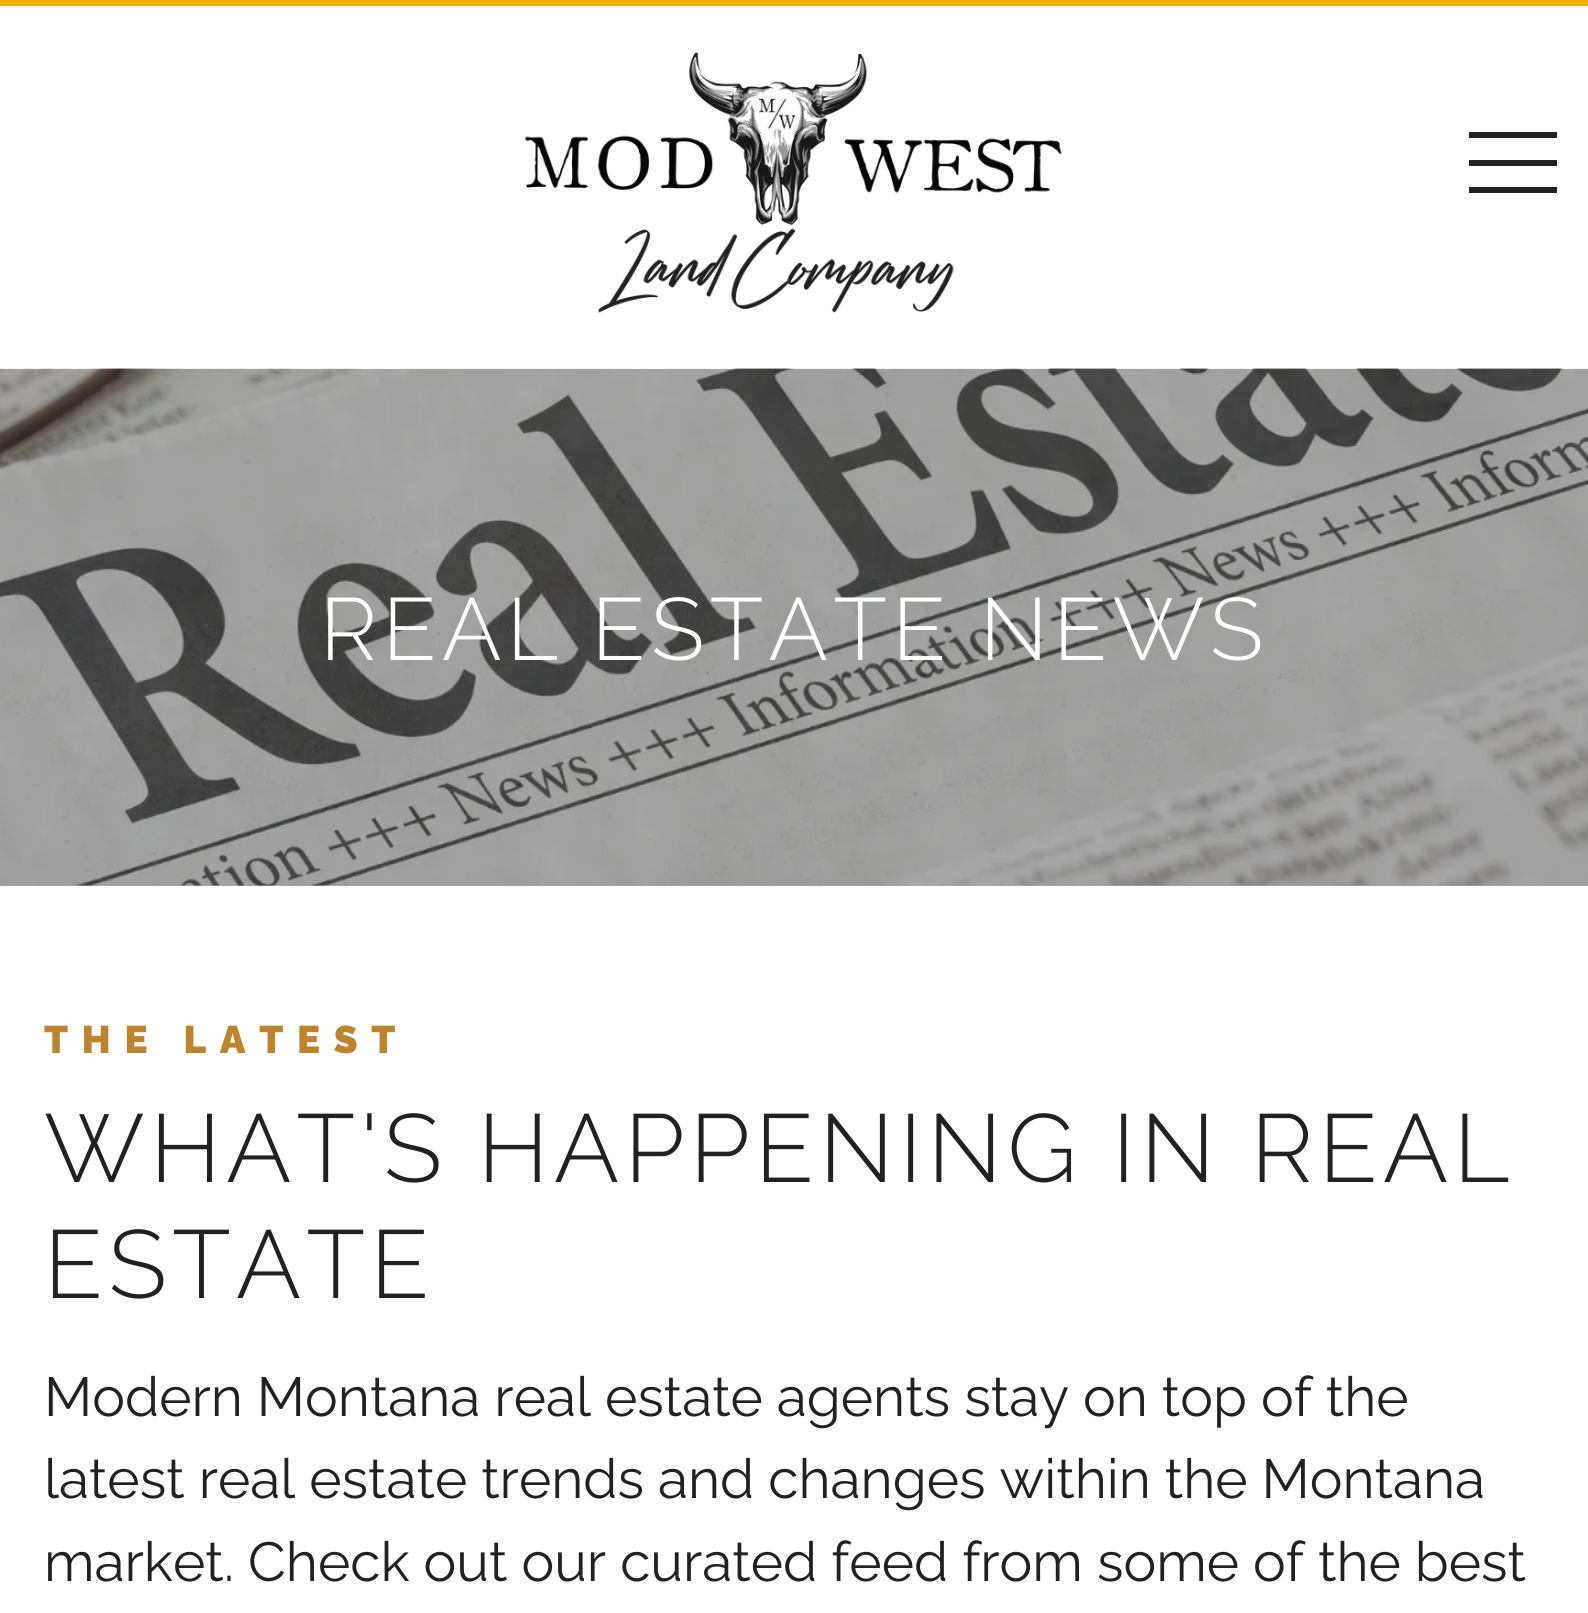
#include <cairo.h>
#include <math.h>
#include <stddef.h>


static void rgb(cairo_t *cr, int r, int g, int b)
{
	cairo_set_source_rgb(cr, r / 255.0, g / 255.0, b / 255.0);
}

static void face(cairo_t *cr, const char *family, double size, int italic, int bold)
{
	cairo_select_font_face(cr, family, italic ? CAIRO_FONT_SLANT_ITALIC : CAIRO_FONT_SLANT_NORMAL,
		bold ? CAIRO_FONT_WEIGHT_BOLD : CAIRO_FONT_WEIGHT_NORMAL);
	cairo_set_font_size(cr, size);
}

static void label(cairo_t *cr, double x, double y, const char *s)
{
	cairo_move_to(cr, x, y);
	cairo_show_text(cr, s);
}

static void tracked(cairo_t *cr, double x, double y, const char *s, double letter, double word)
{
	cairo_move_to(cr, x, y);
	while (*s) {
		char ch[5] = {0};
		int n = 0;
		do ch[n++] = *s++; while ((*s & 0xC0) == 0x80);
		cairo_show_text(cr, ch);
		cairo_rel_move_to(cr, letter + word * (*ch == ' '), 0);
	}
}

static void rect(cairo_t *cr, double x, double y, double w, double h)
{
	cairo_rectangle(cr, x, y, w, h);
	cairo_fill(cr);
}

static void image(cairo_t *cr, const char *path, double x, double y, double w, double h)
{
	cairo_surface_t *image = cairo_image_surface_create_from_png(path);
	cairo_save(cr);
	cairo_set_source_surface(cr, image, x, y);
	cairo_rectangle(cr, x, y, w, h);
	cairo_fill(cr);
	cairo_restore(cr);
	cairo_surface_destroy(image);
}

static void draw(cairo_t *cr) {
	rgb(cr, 255, 255, 255);
	cairo_paint(cr);
	rgb(cr, 171, 171, 171);
	rect(cr, 0, 885, 1588, 1);
	rgb(cr, 238, 177, 17);
	rect(cr, 0, 0, 1588, 6);
	image(cr, "image0.png", 525, 52, 537, 261);
	rgb(cr, 34, 34, 34);
	rect(cr, 1469, 160, 88, 6);
	rect(cr, 1469, 132, 88, 6);
	rect(cr, 1469, 187, 88, 6);
	image(cr, "image1.png", 0, 368, 1588, 518);
	face(cr, "Raleway Light", 88, 0, 0);
	rgb(cr, 255, 255, 255);
	tracked(cr, 320, 660, "REAL ESTATE NEWS", 5.5, 0);
	face(cr, "Raleway Black", 38.5, 0, 0);
	rgb(cr, 189, 132, 45);
	tracked(cr, 44, 1053, "THE LATEST", 13.75, 0);
	face(cr, "Raleway Light", 96.25, 0, 0);
	rgb(cr, 33, 33, 33);
	tracked(cr, 44, 1182, "WHAT'S HAPPENING IN REAL", 5.5, 0);
	tracked(cr, 44, 1298, "ESTATE", 5.5, 0);
	face(cr, "Raleway", 55, 0, 0);
	label(cr, 44, 1416, "Modern Montana real estate agents stay on top of the");
	label(cr, 44, 1498, "latest real estate trends and changes within the Montana");
	label(cr, 44, 1581, "market. Check out our curated feed from some of the best");
}

int main(void) {
	cairo_surface_t *surface = cairo_image_surface_create(CAIRO_FORMAT_RGB24, 1588, 1613);
	cairo_t *cr = cairo_create(surface);
	cairo_font_options_t *options = cairo_font_options_create();
	cairo_font_options_set_hint_metrics(options, CAIRO_HINT_METRICS_OFF);
	cairo_font_options_set_hint_style(options, CAIRO_HINT_STYLE_NONE);
	cairo_set_font_options(cr, options);
	cairo_set_miter_limit(cr, 4);
	draw(cr);
	cairo_surface_write_to_png(surface, "render.png");
	cairo_font_options_destroy(options);
	cairo_destroy(cr);
	cairo_surface_destroy(surface);
	return 0;
}
